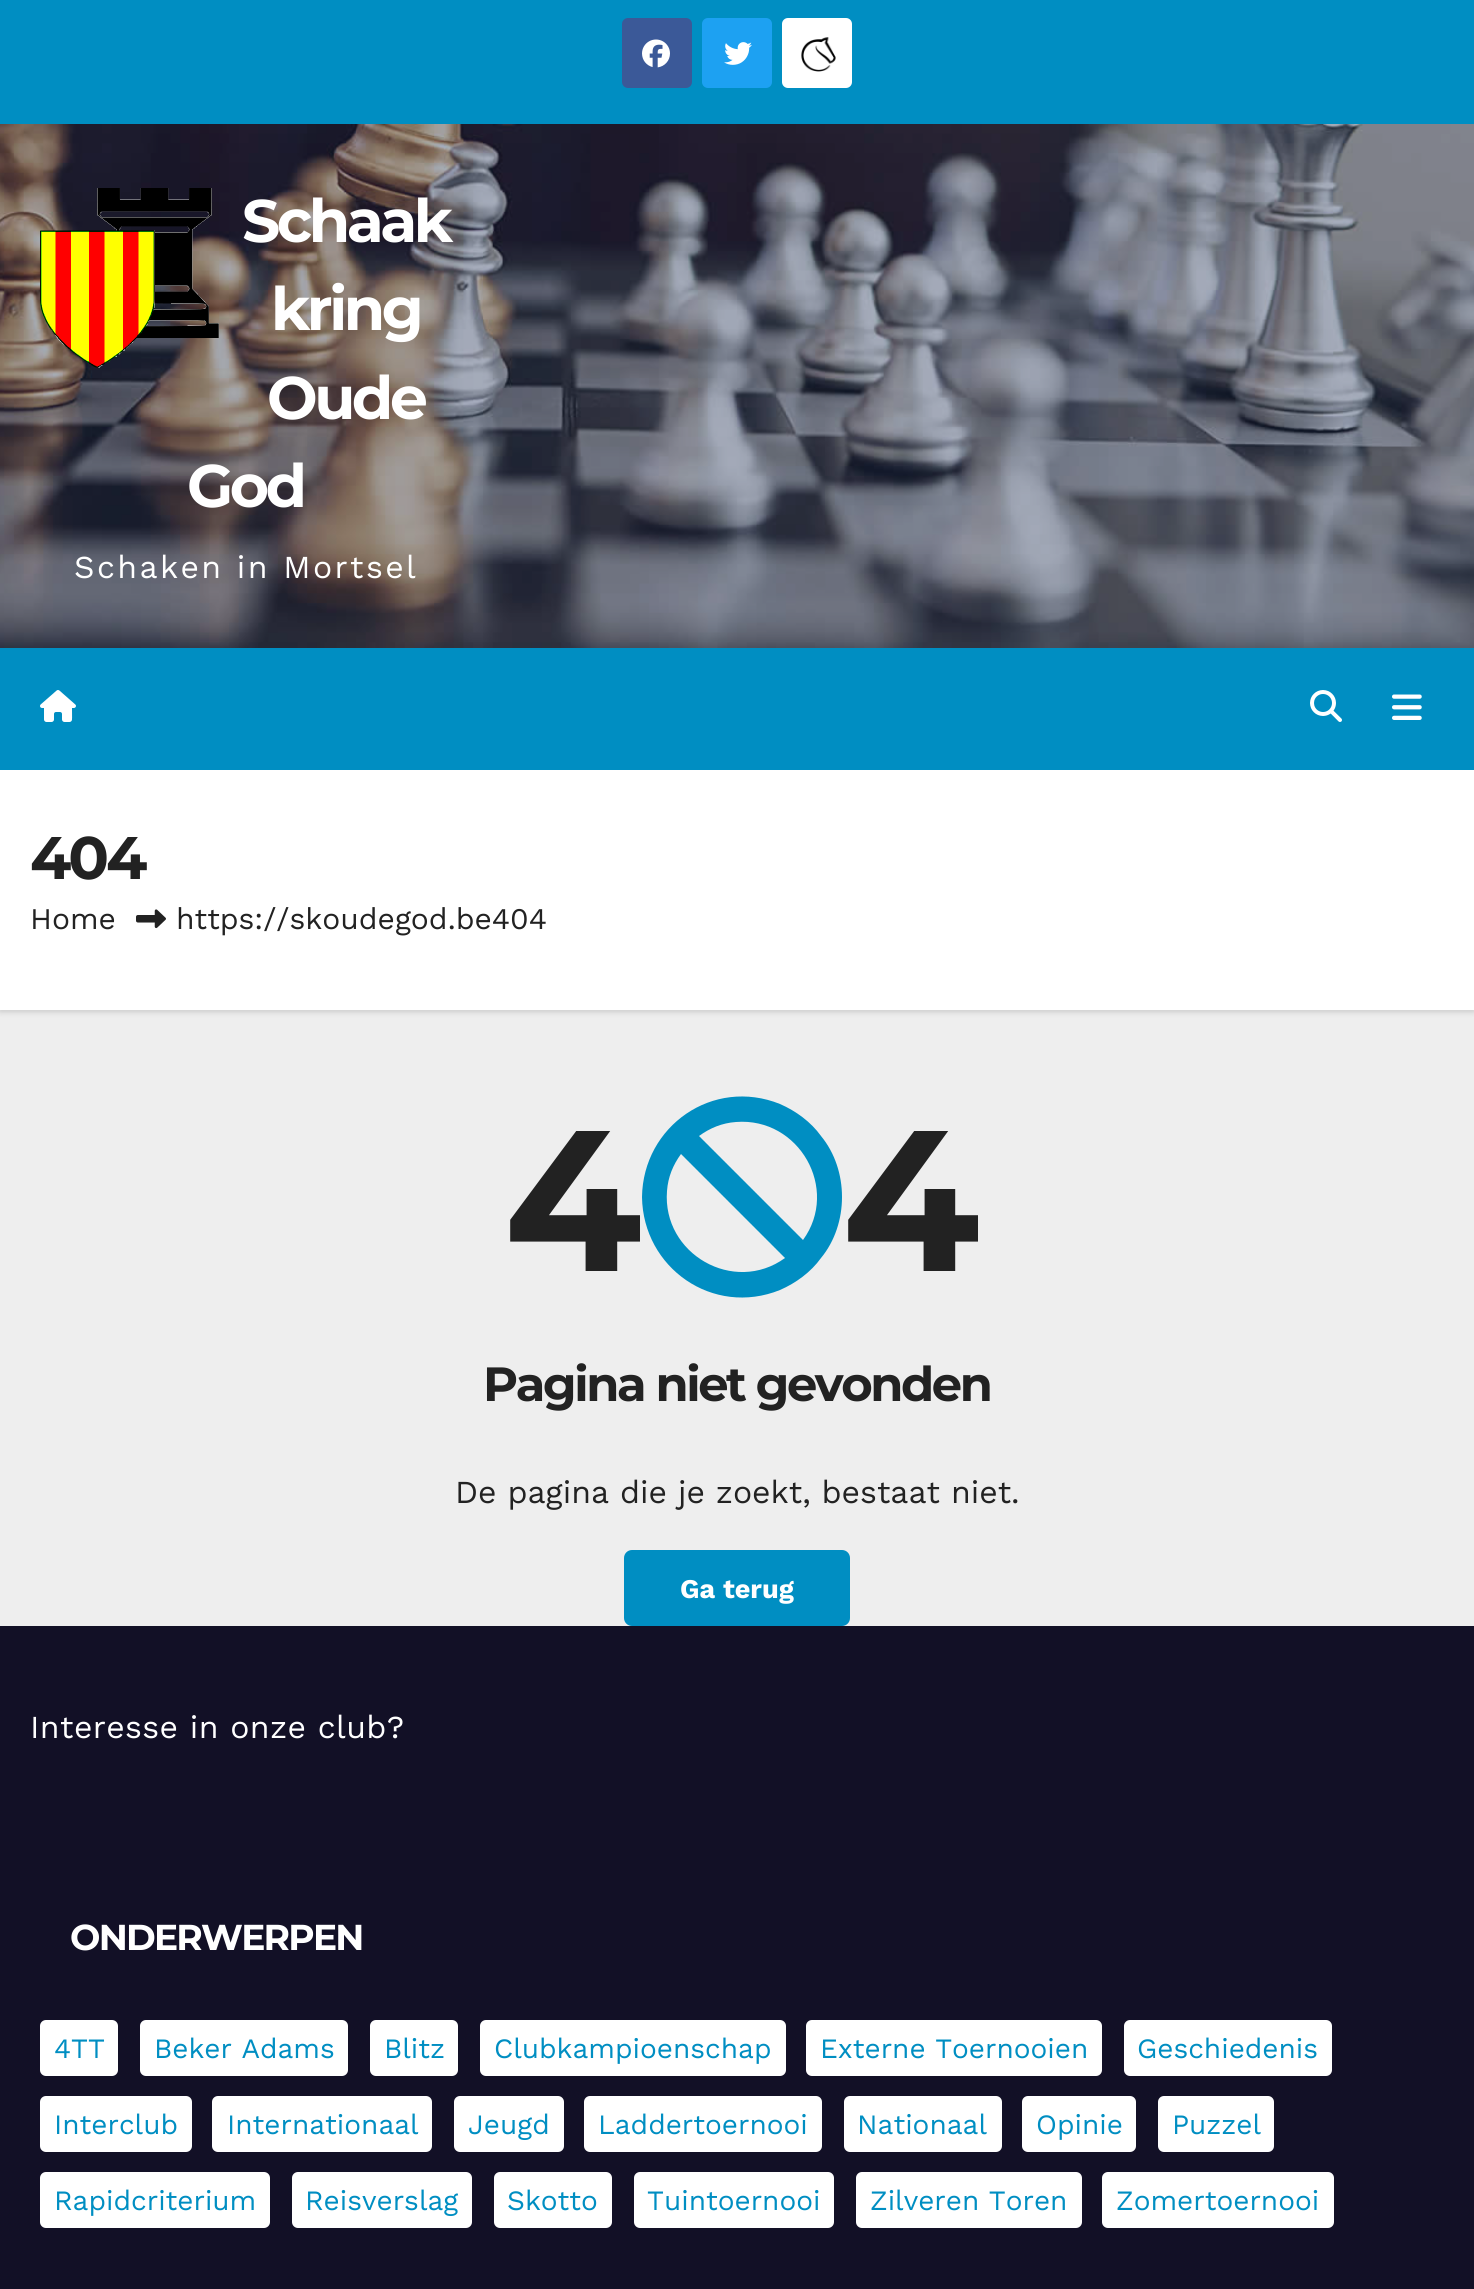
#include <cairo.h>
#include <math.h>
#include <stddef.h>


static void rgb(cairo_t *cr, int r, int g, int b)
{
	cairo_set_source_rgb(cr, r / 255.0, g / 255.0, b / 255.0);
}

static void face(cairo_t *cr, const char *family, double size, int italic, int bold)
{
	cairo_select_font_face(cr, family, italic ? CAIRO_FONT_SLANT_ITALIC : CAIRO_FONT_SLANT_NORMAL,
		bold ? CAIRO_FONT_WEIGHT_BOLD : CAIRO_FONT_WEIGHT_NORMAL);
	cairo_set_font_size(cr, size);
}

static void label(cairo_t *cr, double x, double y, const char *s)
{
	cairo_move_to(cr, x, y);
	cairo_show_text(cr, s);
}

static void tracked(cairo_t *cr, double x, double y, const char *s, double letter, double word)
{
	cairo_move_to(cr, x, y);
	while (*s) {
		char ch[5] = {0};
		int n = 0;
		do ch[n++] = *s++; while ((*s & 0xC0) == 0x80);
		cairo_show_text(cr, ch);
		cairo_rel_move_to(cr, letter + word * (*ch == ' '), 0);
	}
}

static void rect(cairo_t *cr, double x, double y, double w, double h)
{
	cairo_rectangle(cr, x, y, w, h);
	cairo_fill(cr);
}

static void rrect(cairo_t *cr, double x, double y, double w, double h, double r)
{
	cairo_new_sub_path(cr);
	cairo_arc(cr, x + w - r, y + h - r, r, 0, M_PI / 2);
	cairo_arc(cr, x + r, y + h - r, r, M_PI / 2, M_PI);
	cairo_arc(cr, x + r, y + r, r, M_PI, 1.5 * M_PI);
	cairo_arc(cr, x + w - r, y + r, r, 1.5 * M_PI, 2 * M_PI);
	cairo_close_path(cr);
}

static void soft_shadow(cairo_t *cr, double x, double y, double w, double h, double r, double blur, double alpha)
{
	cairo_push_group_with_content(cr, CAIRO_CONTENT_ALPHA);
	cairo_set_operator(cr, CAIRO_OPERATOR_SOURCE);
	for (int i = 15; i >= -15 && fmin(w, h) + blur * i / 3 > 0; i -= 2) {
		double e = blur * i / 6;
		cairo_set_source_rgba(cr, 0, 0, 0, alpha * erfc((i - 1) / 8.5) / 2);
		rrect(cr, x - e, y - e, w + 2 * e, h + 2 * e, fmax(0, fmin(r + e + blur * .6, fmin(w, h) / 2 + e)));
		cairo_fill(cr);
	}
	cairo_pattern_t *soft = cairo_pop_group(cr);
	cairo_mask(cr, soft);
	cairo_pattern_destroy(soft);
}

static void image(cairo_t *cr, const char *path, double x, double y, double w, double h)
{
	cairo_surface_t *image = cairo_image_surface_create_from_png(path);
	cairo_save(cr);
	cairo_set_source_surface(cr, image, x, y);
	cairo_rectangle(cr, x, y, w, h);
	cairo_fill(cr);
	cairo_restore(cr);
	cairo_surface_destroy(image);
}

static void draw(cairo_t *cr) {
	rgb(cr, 238, 238, 238);
	cairo_paint(cr);
	rgb(cr, 0, 142, 194);
	rect(cr, 0, 0, 1474, 124);
	rgb(cr, 59, 89, 152);
	rrect(cr, 622, 18, 70, 70, 6);
	cairo_fill(cr);
	image(cr, "image0.png", 642, 39, 28, 29);
	rgb(cr, 29, 161, 242);
	rrect(cr, 702, 18, 70, 70, 6);
	cairo_fill(cr);
	image(cr, "image1.png", 724, 42, 28, 23);
	rgb(cr, 255, 255, 255);
	rrect(cr, 782, 18, 70, 70, 6);
	cairo_fill(cr);
	image(cr, "image2.png", 801, 37, 35, 35);
	image(cr, "image3.png", 0, 124, 1474, 524);
	image(cr, "image4.png", 40, 188, 179, 180);
	face(cr, "Montserrat", 60, 0, 1);
	tracked(cr, 242, 242, "Schaak", -3.5, 0);
	tracked(cr, 271, 330, "kring", -3.5, 0);
	tracked(cr, 267, 419, "Oude", -3.5, 0);
	tracked(cr, 187, 507, "God", -3.5, 0);
	face(cr, "Work Sans", 32, 0, 0);
	tracked(cr, 74, 578, "Schaken in Mortsel", 2.4, 0);
	rgb(cr, 0, 0, 0);
	soft_shadow(cr, 0, 772, 1474, 240, 0, 3, 0.15);
	rgb(cr, 0, 142, 194);
	rect(cr, 0, 648, 1474, 122);
	image(cr, "image5.png", 40, 690, 36, 32);
	image(cr, "image6.png", 1310, 690, 32, 32);
	image(cr, "image7.png", 1392, 694, 30, 26);
	rgb(cr, 255, 255, 255);
	rect(cr, 0, 770, 1474, 240);
	face(cr, "Montserrat", 60, 0, 1);
	rgb(cr, 34, 34, 34);
	tracked(cr, 30, 879, "404", -3, 0);
	face(cr, "Work Sans", 30, 0, 0);
	label(cr, 30, 929, "Home");
	image(cr, "image8.png", 136, 909, 30, 20);
	label(cr, 176, 929, "https://skoudegod.be404");
	face(cr, "Montserrat", 200, 0, 1);
	tracked(cr, 504, 1271, "4", -10, 0);
	rgb(cr, 0, 142, 194);
	cairo_new_path(cr);
	cairo_move_to(cr, 785, 1258);
	cairo_line_to(cr, 681, 1154);
	cairo_curve_to(cr, 673, 1165, 668, 1177, 667, 1191);
	cairo_curve_to(cr, 662, 1254, 734, 1295, 785, 1258);
	cairo_close_path(cr);
	cairo_move_to(cr, 803, 1240);
	cairo_curve_to(cr, 840, 1189, 799, 1117, 736, 1122);
	cairo_curve_to(cr, 722, 1123, 710, 1128, 699, 1136);
	cairo_close_path(cr);
	cairo_move_to(cr, 642, 1197);
	cairo_curve_to(cr, 643, 1126, 713, 1077, 780, 1104);
	cairo_curve_to(cr, 796, 1111, 811, 1122, 821, 1136);
	cairo_curve_to(cr, 835, 1153, 842, 1175, 842, 1197);
	cairo_curve_to(cr, 842, 1219, 835, 1241, 821, 1258);
	cairo_curve_to(cr, 811, 1272, 796, 1283, 780, 1290);
	cairo_curve_to(cr, 713, 1317, 643, 1268, 642, 1197);
	cairo_close_path(cr);
	cairo_fill(cr);
	rgb(cr, 34, 34, 34);
	tracked(cr, 842, 1271, "4", -10, 0);
	face(cr, "Montserrat", 48, 0, 1);
	tracked(cr, 483, 1401, "Pagina niet gevonden", -2.4, 0);
	face(cr, "Work Sans", 32, 0, 0);
	label(cr, 455, 1503, "De pagina die je zoekt, bestaat niet.");
	rgb(cr, 0, 142, 194);
	rrect(cr, 626, 1552, 222, 72, 6);
	cairo_fill_preserve(cr);
	cairo_set_line_width(cr, 4);
	cairo_stroke(cr);
	face(cr, "Work Sans", 27, 0, 1);
	rgb(cr, 255, 255, 255);
	label(cr, 680, 1598, "Ga terug");
	rgb(cr, 18, 16, 38);
	rect(cr, 0, 1626, 1474, 663);
	face(cr, "Work Sans", 32, 0, 0);
	rgb(cr, 255, 255, 255);
	tracked(cr, 30, 1738, "Interesse in onze club?", 0.4, 0);
	face(cr, "Montserrat", 36, 0, 1);
	tracked(cr, 70, 1950, "ONDERWERPEN", -1.75, 0);
	rrect(cr, 41, 2021, 76, 54, 5);
	cairo_fill_preserve(cr);
	cairo_set_line_width(cr, 2);
	cairo_stroke(cr);
	face(cr, "Work Sans", 28, 0, 0);
	rgb(cr, 0, 142, 194);
	label(cr, 54, 2058, "4TT");
	rgb(cr, 255, 255, 255);
	rrect(cr, 141, 2021, 206, 54, 5);
	cairo_fill_preserve(cr);
	cairo_stroke(cr);
	rgb(cr, 0, 142, 194);
	label(cr, 154, 2058, "Beker Adams");
	rgb(cr, 255, 255, 255);
	rrect(cr, 371, 2021, 86, 54, 5);
	cairo_fill_preserve(cr);
	cairo_stroke(cr);
	rgb(cr, 0, 142, 194);
	label(cr, 384, 2058, "Blitz");
	rgb(cr, 255, 255, 255);
	rrect(cr, 481, 2021, 304, 54, 5);
	cairo_fill_preserve(cr);
	cairo_stroke(cr);
	rgb(cr, 0, 142, 194);
	label(cr, 494, 2058, "Clubkampioenschap");
	rgb(cr, 255, 255, 255);
	rrect(cr, 807, 2021, 294, 54, 5);
	cairo_fill_preserve(cr);
	cairo_stroke(cr);
	rgb(cr, 0, 142, 194);
	label(cr, 820, 2058, "Externe Toernooien");
	rgb(cr, 255, 255, 255);
	rrect(cr, 1125, 2021, 206, 54, 5);
	cairo_fill_preserve(cr);
	cairo_stroke(cr);
	rgb(cr, 0, 142, 194);
	label(cr, 1137, 2058, "Geschiedenis");
	rgb(cr, 255, 255, 255);
	rrect(cr, 41, 2097, 150, 54, 5);
	cairo_fill_preserve(cr);
	cairo_stroke(cr);
	rgb(cr, 0, 142, 194);
	label(cr, 54, 2134, "Interclub");
	rgb(cr, 255, 255, 255);
	rrect(cr, 213, 2097, 218, 54, 5);
	cairo_fill_preserve(cr);
	cairo_stroke(cr);
	rgb(cr, 0, 142, 194);
	label(cr, 227, 2134, "Internationaal");
	rgb(cr, 255, 255, 255);
	rrect(cr, 455, 2097, 108, 54, 5);
	cairo_fill_preserve(cr);
	cairo_stroke(cr);
	rgb(cr, 0, 142, 194);
	label(cr, 468, 2134, "Jeugd");
	rgb(cr, 255, 255, 255);
	rrect(cr, 585, 2097, 236, 54, 5);
	cairo_fill_preserve(cr);
	cairo_stroke(cr);
	rgb(cr, 0, 142, 194);
	label(cr, 598, 2134, "Laddertoernooi");
	rgb(cr, 255, 255, 255);
	rrect(cr, 845, 2097, 156, 54, 5);
	cairo_fill_preserve(cr);
	cairo_stroke(cr);
	rgb(cr, 0, 142, 194);
	label(cr, 857, 2134, "Nationaal");
	rgb(cr, 255, 255, 255);
	rrect(cr, 1023, 2097, 112, 54, 5);
	cairo_fill_preserve(cr);
	cairo_stroke(cr);
	rgb(cr, 0, 142, 194);
	label(cr, 1036, 2134, "Opinie");
	rgb(cr, 255, 255, 255);
	rrect(cr, 1159, 2097, 114, 54, 5);
	cairo_fill_preserve(cr);
	cairo_stroke(cr);
	rgb(cr, 0, 142, 194);
	label(cr, 1172, 2134, "Puzzel");
	rgb(cr, 255, 255, 255);
	rrect(cr, 41, 2173, 228, 54, 5);
	cairo_fill_preserve(cr);
	cairo_stroke(cr);
	rgb(cr, 0, 142, 194);
	label(cr, 54, 2210, "Rapidcriterium");
	rgb(cr, 255, 255, 255);
	rrect(cr, 293, 2173, 178, 54, 5);
	cairo_fill_preserve(cr);
	cairo_stroke(cr);
	rgb(cr, 0, 142, 194);
	label(cr, 305, 2210, "Reisverslag");
	rgb(cr, 255, 255, 255);
	rrect(cr, 495, 2173, 116, 54, 5);
	cairo_fill_preserve(cr);
	cairo_stroke(cr);
	rgb(cr, 0, 142, 194);
	label(cr, 507, 2210, "Skotto");
	rgb(cr, 255, 255, 255);
	rrect(cr, 635, 2173, 198, 54, 5);
	cairo_fill_preserve(cr);
	cairo_stroke(cr);
	rgb(cr, 0, 142, 194);
	label(cr, 647, 2210, "Tuintoernooi");
	rgb(cr, 255, 255, 255);
	rrect(cr, 857, 2173, 224, 54, 5);
	cairo_fill_preserve(cr);
	cairo_stroke(cr);
	rgb(cr, 0, 142, 194);
	label(cr, 870, 2210, "Zilveren Toren");
	rgb(cr, 255, 255, 255);
	rrect(cr, 1103, 2173, 230, 54, 5);
	cairo_fill_preserve(cr);
	cairo_stroke(cr);
	rgb(cr, 0, 142, 194);
	label(cr, 1116, 2210, "Zomertoernooi");
}

int main(void) {
	cairo_surface_t *surface = cairo_image_surface_create(CAIRO_FORMAT_RGB24, 1474, 2289);
	cairo_t *cr = cairo_create(surface);
	cairo_font_options_t *options = cairo_font_options_create();
	cairo_font_options_set_hint_metrics(options, CAIRO_HINT_METRICS_OFF);
	cairo_font_options_set_hint_style(options, CAIRO_HINT_STYLE_NONE);
	cairo_set_font_options(cr, options);
	cairo_set_miter_limit(cr, 4);
	draw(cr);
	cairo_surface_write_to_png(surface, "render.png");
	cairo_font_options_destroy(options);
	cairo_destroy(cr);
	cairo_surface_destroy(surface);
	return 0;
}
